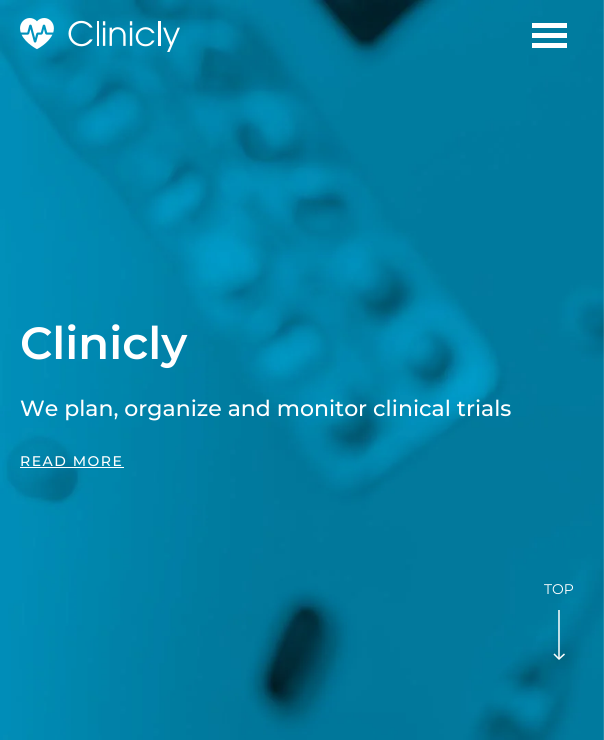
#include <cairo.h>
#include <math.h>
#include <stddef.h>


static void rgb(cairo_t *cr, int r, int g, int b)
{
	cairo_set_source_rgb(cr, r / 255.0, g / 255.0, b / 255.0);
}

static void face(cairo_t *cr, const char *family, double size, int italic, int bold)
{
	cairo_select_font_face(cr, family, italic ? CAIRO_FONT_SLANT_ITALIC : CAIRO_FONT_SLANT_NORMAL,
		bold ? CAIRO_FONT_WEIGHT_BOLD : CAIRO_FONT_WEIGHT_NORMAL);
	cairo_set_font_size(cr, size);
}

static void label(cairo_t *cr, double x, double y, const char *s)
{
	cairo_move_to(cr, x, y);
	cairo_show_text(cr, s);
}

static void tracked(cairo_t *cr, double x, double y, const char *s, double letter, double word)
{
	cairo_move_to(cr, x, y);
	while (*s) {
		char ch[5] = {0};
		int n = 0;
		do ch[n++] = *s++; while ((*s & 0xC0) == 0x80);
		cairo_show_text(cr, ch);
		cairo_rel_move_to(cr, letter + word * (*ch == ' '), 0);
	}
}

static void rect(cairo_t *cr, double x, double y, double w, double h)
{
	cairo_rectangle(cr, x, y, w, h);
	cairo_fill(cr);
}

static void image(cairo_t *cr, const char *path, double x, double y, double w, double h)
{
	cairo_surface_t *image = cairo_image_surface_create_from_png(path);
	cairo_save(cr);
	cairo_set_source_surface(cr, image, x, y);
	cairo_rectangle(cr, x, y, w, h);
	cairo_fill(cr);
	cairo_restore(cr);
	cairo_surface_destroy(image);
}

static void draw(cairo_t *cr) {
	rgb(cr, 255, 255, 255);
	cairo_paint(cr);
	image(cr, "image1.png", 0, 0, 604, 740);
	image(cr, "image0.png", 20, 18, 160, 34);
	rgb(cr, 255, 255, 255);
	rect(cr, 532, 23, 35, 5);
	rect(cr, 532, 33, 35, 5);
	rect(cr, 532, 43, 35, 5);
	face(cr, "Montserrat SemiBold", 45, 0, 0);
	label(cr, 20, 359, "Clinicly");
	face(cr, "Montserrat Medium", 22, 0, 0);
	label(cr, 20, 416, "We plan, organize and monitor clinical trials");
	face(cr, "Montserrat Medium", 14, 0, 0);
	tracked(cr, 20, 466, "READ MORE", 1.5, 0);
	rect(cr, 20, 467, 104, 1);
	face(cr, "Montserrat", 14, 0, 0);
	label(cr, 544, 594, "TOP");
	cairo_set_source_rgba(cr, 1, 1, 1, 0.75);
	rect(cr, 558, 610, 2, 49);
	cairo_new_path(cr);
	cairo_move_to(cr, 554, 654);
	cairo_line_to(cr, 559, 659);
	cairo_line_to(cr, 564.5, 654);
	rgb(cr, 255, 255, 255);
	cairo_set_line_width(cr, 1.5);
	cairo_stroke(cr);
}

int main(void) {
	cairo_surface_t *surface = cairo_image_surface_create(CAIRO_FORMAT_RGB24, 604, 740);
	cairo_t *cr = cairo_create(surface);
	cairo_font_options_t *options = cairo_font_options_create();
	cairo_font_options_set_hint_metrics(options, CAIRO_HINT_METRICS_OFF);
	cairo_font_options_set_hint_style(options, CAIRO_HINT_STYLE_NONE);
	cairo_set_font_options(cr, options);
	cairo_set_miter_limit(cr, 4);
	draw(cr);
	cairo_surface_write_to_png(surface, "render.png");
	cairo_font_options_destroy(options);
	cairo_destroy(cr);
	cairo_surface_destroy(surface);
	return 0;
}
